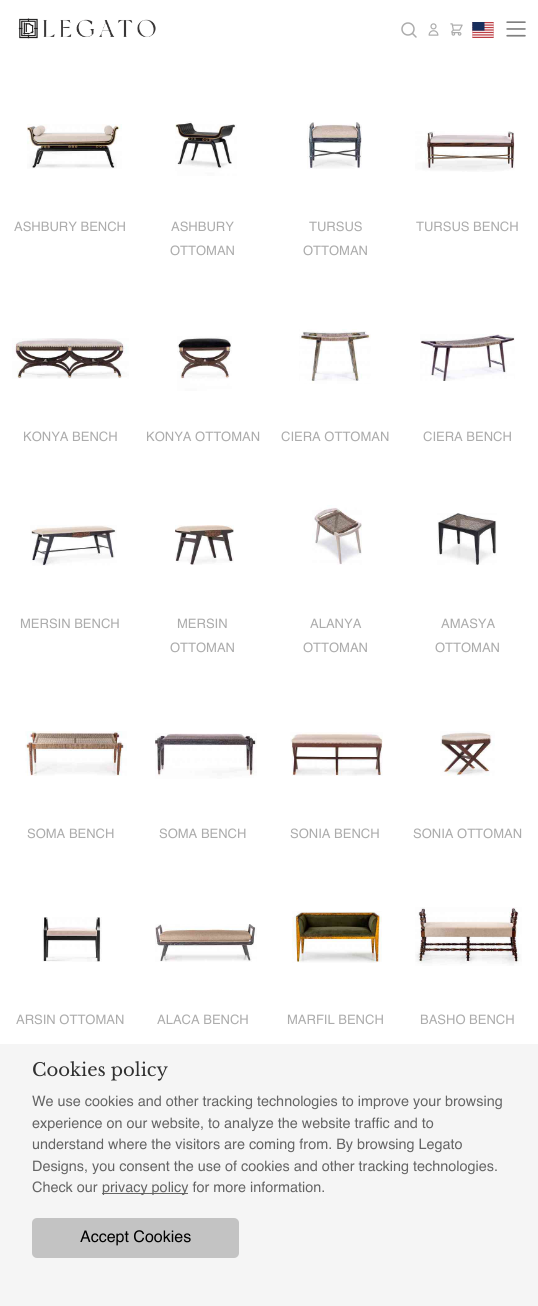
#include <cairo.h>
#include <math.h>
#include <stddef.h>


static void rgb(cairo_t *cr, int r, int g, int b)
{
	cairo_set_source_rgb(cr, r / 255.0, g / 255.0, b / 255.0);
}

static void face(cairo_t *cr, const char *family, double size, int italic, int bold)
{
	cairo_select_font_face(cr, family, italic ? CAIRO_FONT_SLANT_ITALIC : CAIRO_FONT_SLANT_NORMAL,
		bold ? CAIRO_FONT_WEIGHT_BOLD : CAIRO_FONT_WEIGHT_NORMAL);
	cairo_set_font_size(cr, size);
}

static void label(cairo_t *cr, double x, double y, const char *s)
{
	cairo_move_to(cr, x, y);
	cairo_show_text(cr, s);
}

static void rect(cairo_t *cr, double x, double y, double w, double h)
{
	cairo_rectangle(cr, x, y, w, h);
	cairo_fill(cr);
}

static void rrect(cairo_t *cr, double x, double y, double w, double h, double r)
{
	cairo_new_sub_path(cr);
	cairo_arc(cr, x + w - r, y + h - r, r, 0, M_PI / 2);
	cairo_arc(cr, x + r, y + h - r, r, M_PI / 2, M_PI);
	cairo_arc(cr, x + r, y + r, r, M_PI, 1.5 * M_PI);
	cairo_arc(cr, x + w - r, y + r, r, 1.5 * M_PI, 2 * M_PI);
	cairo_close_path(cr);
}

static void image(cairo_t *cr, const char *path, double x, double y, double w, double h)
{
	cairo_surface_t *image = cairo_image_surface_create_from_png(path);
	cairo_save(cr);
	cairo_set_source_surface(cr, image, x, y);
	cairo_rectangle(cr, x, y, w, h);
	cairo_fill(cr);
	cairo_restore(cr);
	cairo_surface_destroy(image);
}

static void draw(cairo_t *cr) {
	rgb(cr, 255, 255, 255);
	cairo_paint(cr);
	image(cr, "image0.png", 18, 18, 138, 21);
	cairo_arc(cr, 408, 29, 6, 0, 2 * M_PI);
	rgb(cr, 172, 172, 172);
	cairo_set_line_width(cr, 1.5);
	cairo_stroke(cr);
	cairo_new_path(cr);
	cairo_move_to(cr, 416, 37);
	cairo_line_to(cr, 412.5, 33.5);
	cairo_set_line_cap(cr, CAIRO_LINE_CAP_ROUND);
	cairo_set_line_join(cr, CAIRO_LINE_JOIN_ROUND);
	cairo_stroke(cr);
	image(cr, "image1.png", 428, 23, 11, 13);
	image(cr, "image2.png", 450, 23, 13, 13);
	image(cr, "image3.png", 472, 22, 22, 16);
	image(cr, "image4.png", 506, 21, 20, 16);
	image(cr, "image5.png", 27, 124, 95, 45);
	face(cr, "Helvetica", 13, 0, 0);
	label(cr, 14, 231, "ASHBURY BENCH");
	image(cr, "image6.png", 175, 121, 62, 55);
	label(cr, 171, 231, "ASHBURY");
	label(cr, 170, 255, "OTTOMAN");
	image(cr, "image7.png", 307, 122, 55, 47);
	label(cr, 309, 231, "TURSUS");
	label(cr, 303, 255, "OTTOMAN");
	image(cr, "image8.png", 415, 131, 100, 41);
	label(cr, 416, 231, "TURSUS BENCH");
	image(cr, "image9.png", 12, 338, 117, 41);
	label(cr, 23, 441, "KONYA BENCH");
	image(cr, "image10.png", 177, 336, 55, 55);
	label(cr, 146, 441, "KONYA OTTOMAN");
	image(cr, "image11.png", 299, 329, 72, 55);
	label(cr, 281, 441, "CIERA OTTOMAN");
	image(cr, "image12.png", 420, 334, 95, 47);
	label(cr, 423, 441, "CIERA BENCH");
	image(cr, "image13.png", 30, 525, 87, 41);
	label(cr, 20, 628, "MERSIN BENCH");
	image(cr, "image14.png", 175, 525, 59, 40);
	label(cr, 177, 628, "MERSIN");
	label(cr, 170, 652, "OTTOMAN");
	image(cr, "image15.png", 312, 505, 50, 60);
	label(cr, 310, 628, "ALANYA");
	label(cr, 303, 652, "OTTOMAN");
	image(cr, "image16.png", 437, 513, 60, 52);
	label(cr, 441, 628, "AMASYA");
	label(cr, 435, 652, "OTTOMAN");
	image(cr, "image17.png", 25, 731, 102, 45);
	label(cr, 27, 838, "SOMA BENCH");
	image(cr, "image18.png", 155, 733, 102, 46);
	label(cr, 159, 838, "SOMA BENCH");
	image(cr, "image19.png", 290, 732, 93, 44);
	label(cr, 290, 838, "SONIA BENCH");
	image(cr, "image20.png", 440, 731, 55, 45);
	label(cr, 413, 838, "SONIA OTTOMAN");
	image(cr, "image21.png", 42, 917, 60, 45);
	label(cr, 16, 1024, "ARSIN OTTOMAN");
	image(cr, "image22.png", 155, 924, 102, 38);
	label(cr, 157, 1024, "ALACA BENCH");
	image(cr, "image23.png", 292, 911, 90, 52);
	label(cr, 287, 1024, "MARFIL BENCH");
	image(cr, "image24.png", 415, 907, 107, 59);
	label(cr, 420, 1024, "BASHO BENCH");
	rgb(cr, 245, 245, 245);
	rect(cr, 0, 1044, 538, 262);
	face(cr, "Libre Baskerville", 18, 0, 0);
	rgb(cr, 49, 49, 49);
	label(cr, 32, 1076, "Cookies policy");
	face(cr, "Helvetica", 14.4, 0, 0);
	rgb(cr, 101, 101, 101);
	label(cr, 32, 1106, "We use cookies and other tracking technologies to improve your browsing");
	label(cr, 32, 1128, "experience on our website, to analyze the website traffic and to");
	label(cr, 32, 1149, "understand where the visitors are coming from. By browsing Legato");
	label(cr, 32, 1171, "Designs, you consent the use of cookies and other tracking technologies.");
	label(cr, 32, 1192, "Check our");
	rect(cr, 102, 1193, 86, 1);
	label(cr, 102, 1192, "privacy policy for more information.");
	rgb(cr, 195, 195, 195);
	rrect(cr, 32, 1218, 207, 40, 5);
	cairo_fill(cr);
	face(cr, "Helvetica", 16, 0, 0);
	rgb(cr, 0, 0, 0);
	label(cr, 80, 1242, "Accept Cookies");
}

int main(void) {
	cairo_surface_t *surface = cairo_image_surface_create(CAIRO_FORMAT_RGB24, 538, 1306);
	cairo_t *cr = cairo_create(surface);
	cairo_font_options_t *options = cairo_font_options_create();
	cairo_font_options_set_hint_metrics(options, CAIRO_HINT_METRICS_OFF);
	cairo_font_options_set_hint_style(options, CAIRO_HINT_STYLE_NONE);
	cairo_set_font_options(cr, options);
	cairo_set_miter_limit(cr, 4);
	draw(cr);
	cairo_surface_write_to_png(surface, "render.png");
	cairo_font_options_destroy(options);
	cairo_destroy(cr);
	cairo_surface_destroy(surface);
	return 0;
}
